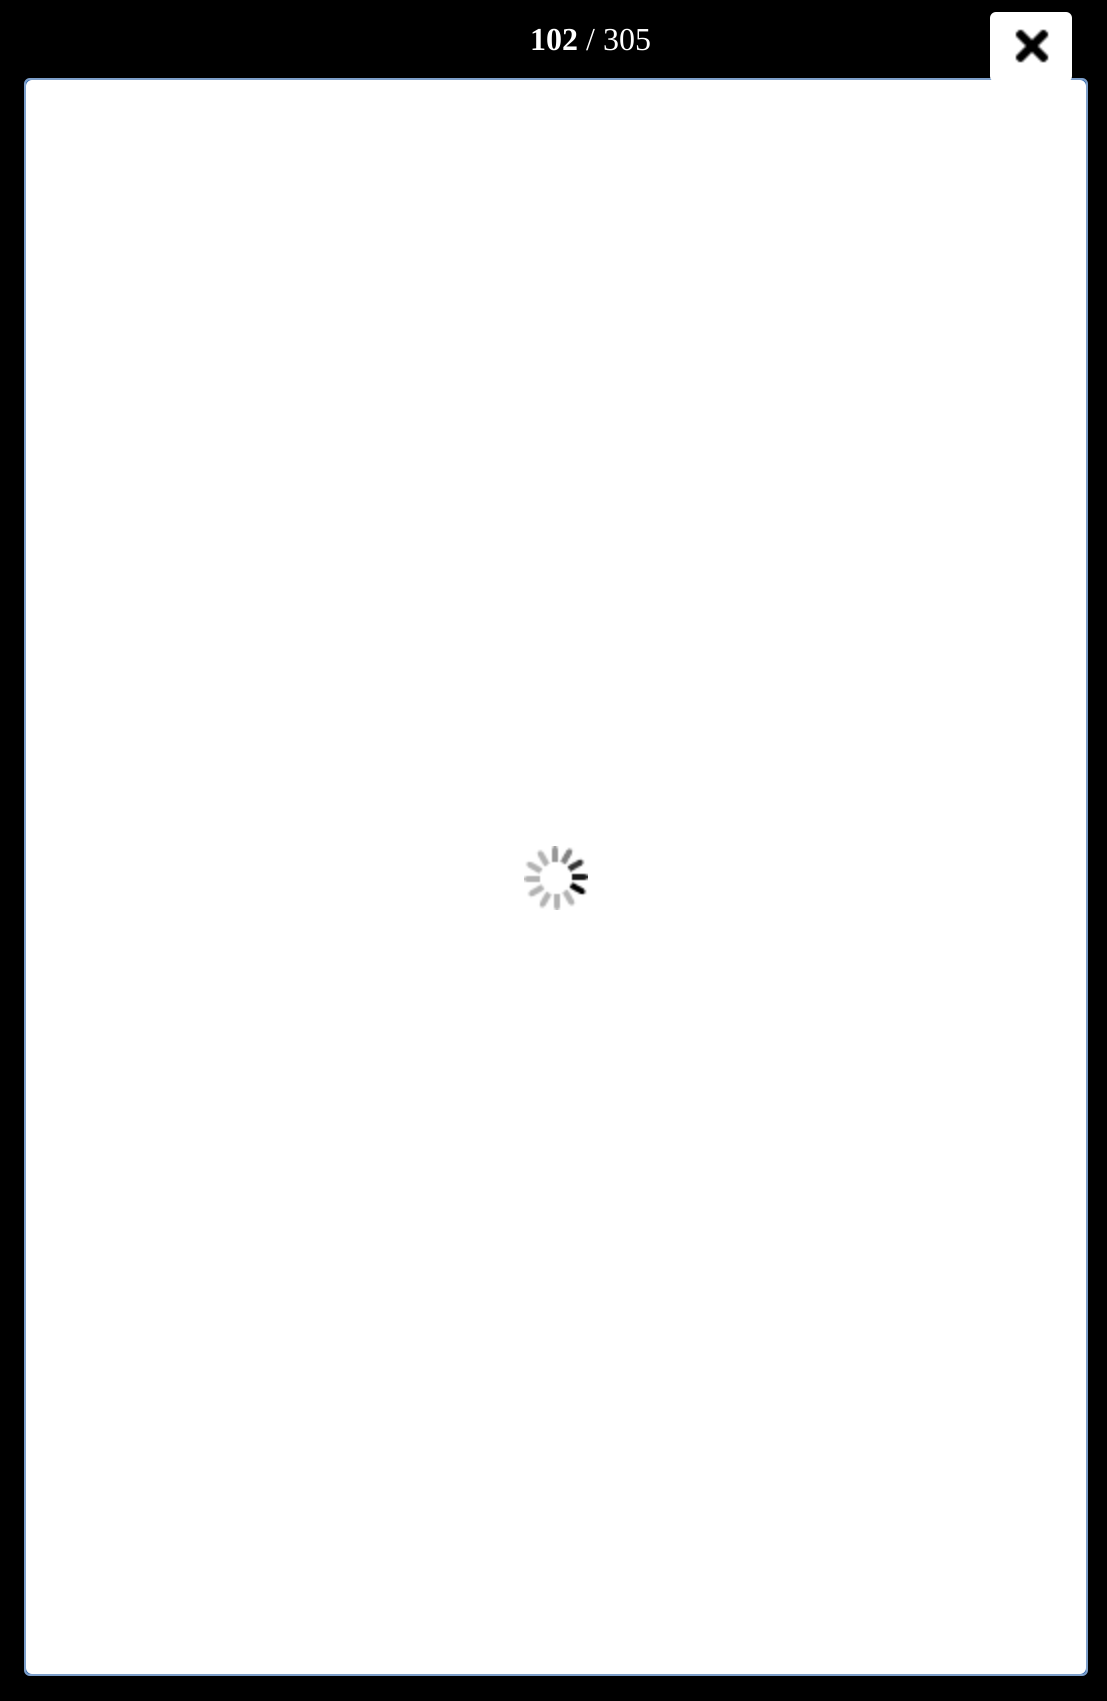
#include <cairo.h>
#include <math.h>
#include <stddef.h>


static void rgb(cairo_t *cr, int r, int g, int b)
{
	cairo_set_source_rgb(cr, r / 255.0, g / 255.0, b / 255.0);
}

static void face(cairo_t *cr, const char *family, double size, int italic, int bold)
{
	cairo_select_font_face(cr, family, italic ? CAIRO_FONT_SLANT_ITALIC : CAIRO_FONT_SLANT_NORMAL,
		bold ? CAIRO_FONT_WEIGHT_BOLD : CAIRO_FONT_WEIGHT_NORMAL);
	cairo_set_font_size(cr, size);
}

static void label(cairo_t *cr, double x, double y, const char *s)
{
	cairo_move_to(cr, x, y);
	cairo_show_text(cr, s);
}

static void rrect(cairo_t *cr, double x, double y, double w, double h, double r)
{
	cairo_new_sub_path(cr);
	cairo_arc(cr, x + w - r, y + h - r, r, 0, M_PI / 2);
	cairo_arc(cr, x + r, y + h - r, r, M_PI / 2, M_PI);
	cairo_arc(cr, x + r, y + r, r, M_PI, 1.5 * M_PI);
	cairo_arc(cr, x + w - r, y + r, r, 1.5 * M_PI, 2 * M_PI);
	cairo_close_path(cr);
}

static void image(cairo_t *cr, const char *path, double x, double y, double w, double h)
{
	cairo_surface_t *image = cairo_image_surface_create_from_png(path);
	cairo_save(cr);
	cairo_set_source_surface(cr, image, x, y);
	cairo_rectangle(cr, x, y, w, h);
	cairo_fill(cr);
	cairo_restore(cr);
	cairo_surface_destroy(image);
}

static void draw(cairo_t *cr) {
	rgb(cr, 0, 0, 0);
	cairo_paint(cr);
	rgb(cr, 39, 95, 167);
	rrect(cr, 24, 78, 1064, 1598, 6);
	cairo_fill(cr);
	rrect(cr, 25, 79, 1062, 1596, 5);
	cairo_set_source_rgba(cr, 1, 1, 1, 0.4);
	cairo_stroke(cr);
	rgb(cr, 255, 255, 255);
	rrect(cr, 26, 80, 1060, 1594, 6);
	cairo_fill(cr);
	rrect(cr, 990, 12, 82, 70, 6);
	cairo_fill(cr);
	image(cr, "image0.png", 1015, 29, 34, 34);
	image(cr, "image1.png", 524, 846, 64, 64);
	face(cr, "Liberation Serif", 32, 0, 1);
	label(cr, 530, 50, "102");
	face(cr, "Liberation Serif", 32, 0, 0);
	label(cr, 586, 50, "/ 305");
}

int main(void) {
	cairo_surface_t *surface = cairo_image_surface_create(CAIRO_FORMAT_RGB24, 1107, 1701);
	cairo_t *cr = cairo_create(surface);
	cairo_font_options_t *options = cairo_font_options_create();
	cairo_font_options_set_hint_metrics(options, CAIRO_HINT_METRICS_OFF);
	cairo_font_options_set_hint_style(options, CAIRO_HINT_STYLE_NONE);
	cairo_set_font_options(cr, options);
	cairo_set_miter_limit(cr, 4);
	draw(cr);
	cairo_surface_write_to_png(surface, "render.png");
	cairo_font_options_destroy(options);
	cairo_destroy(cr);
	cairo_surface_destroy(surface);
	return 0;
}
